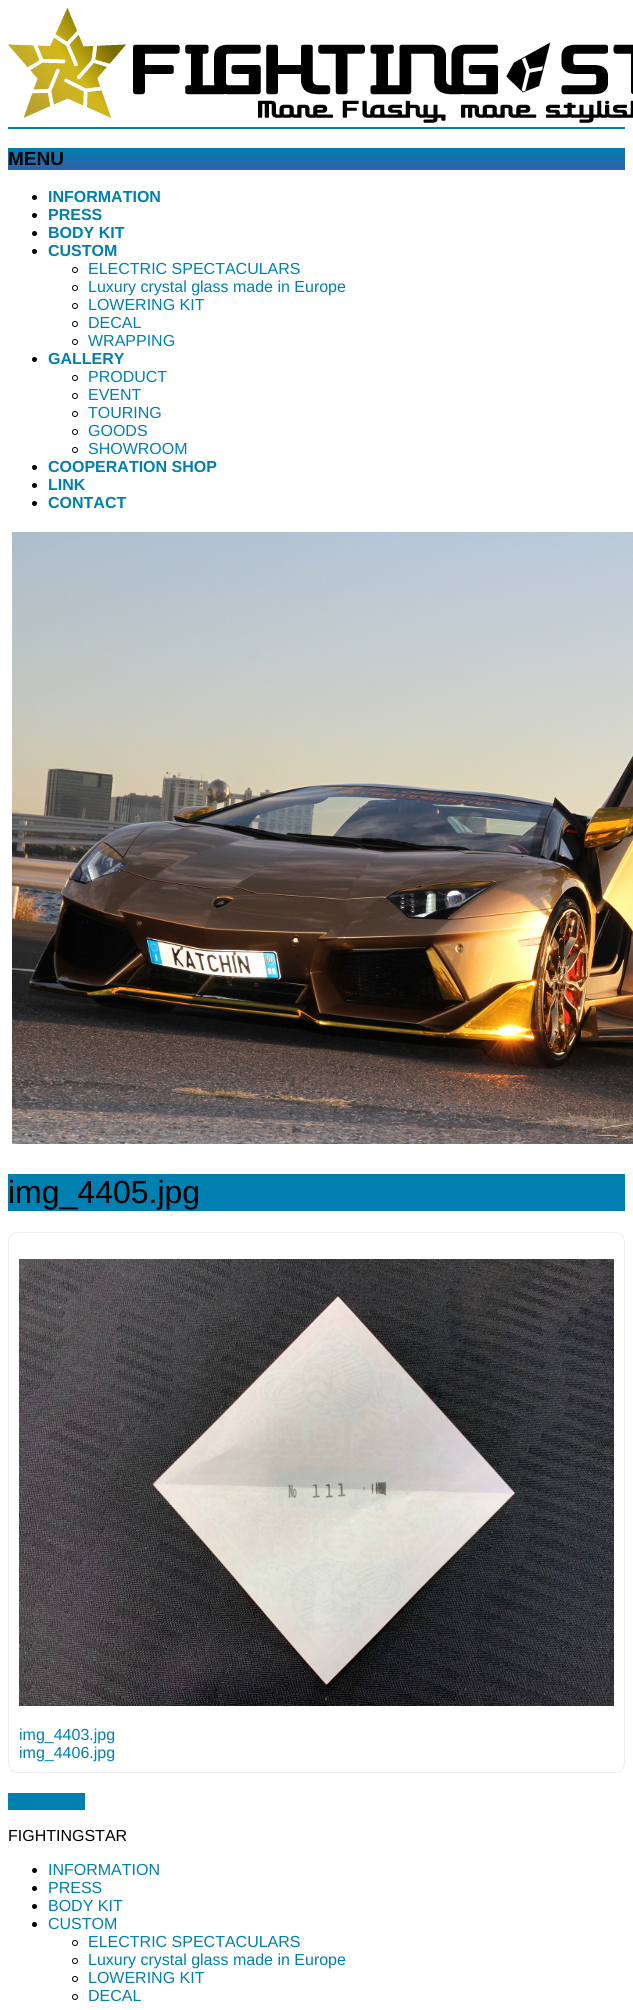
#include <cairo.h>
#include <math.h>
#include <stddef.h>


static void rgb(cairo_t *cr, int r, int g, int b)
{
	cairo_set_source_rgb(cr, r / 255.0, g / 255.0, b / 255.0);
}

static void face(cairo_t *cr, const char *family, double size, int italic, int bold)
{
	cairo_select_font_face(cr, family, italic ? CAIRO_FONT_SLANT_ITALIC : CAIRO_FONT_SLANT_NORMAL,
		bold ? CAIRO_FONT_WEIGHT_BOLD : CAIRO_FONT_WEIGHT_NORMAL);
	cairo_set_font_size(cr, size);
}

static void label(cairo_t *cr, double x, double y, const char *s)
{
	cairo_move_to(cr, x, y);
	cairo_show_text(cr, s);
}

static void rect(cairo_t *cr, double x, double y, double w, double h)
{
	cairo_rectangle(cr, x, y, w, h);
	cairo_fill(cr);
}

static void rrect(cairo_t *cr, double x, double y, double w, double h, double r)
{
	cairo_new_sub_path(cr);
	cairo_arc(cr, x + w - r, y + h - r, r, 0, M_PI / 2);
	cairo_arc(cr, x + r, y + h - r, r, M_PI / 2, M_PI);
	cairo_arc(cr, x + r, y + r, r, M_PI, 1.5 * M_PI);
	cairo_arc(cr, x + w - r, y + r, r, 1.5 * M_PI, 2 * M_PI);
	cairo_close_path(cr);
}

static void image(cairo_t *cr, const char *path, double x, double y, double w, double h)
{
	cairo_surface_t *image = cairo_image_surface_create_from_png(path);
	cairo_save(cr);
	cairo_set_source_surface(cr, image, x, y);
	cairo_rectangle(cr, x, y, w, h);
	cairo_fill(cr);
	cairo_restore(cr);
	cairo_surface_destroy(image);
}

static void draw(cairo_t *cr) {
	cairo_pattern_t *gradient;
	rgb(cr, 255, 255, 255);
	cairo_paint(cr);
	image(cr, "image0.png", 8, 8, 625, 115);
	rgb(cr, 0, 127, 177);
	rect(cr, 8, 127, 617, 2);
	gradient = cairo_pattern_create_linear(316, 148, 316, 170);
	cairo_pattern_add_color_stop_rgba(gradient, 0, 0, 0.498, 0.694, 1);
	cairo_pattern_add_color_stop_rgba(gradient, 1, 0.196, 0.38, 0.671, 1);
	cairo_set_source(cr, gradient);
	cairo_pattern_destroy(gradient);
	rect(cr, 8, 148, 616, 22);
	rgb(cr, 50, 97, 171);
	rect(cr, 624, 148, 1, 22);
	face(cr, "Liberation Sans", 19, 0, 1);
	rgb(cr, 0, 0, 0);
	label(cr, 8, 165, "MENU");
	cairo_new_path(cr);
	cairo_arc(cr, 34.5, 197.5, 2.5, 0, 2 * M_PI);
	cairo_fill(cr);
	face(cr, "Liberation Sans", 16, 0, 1);
	rgb(cr, 0, 127, 177);
	label(cr, 48, 202, "INFORMATION");
	rgb(cr, 0, 0, 0);
	cairo_new_path(cr);
	cairo_arc(cr, 34.5, 215.5, 2.5, 0, 2 * M_PI);
	cairo_fill(cr);
	rgb(cr, 0, 127, 177);
	label(cr, 48, 220, "PRESS");
	rgb(cr, 0, 0, 0);
	cairo_new_path(cr);
	cairo_arc(cr, 34.5, 233.5, 2.5, 0, 2 * M_PI);
	cairo_fill(cr);
	rgb(cr, 0, 127, 177);
	label(cr, 48, 238, "BODY KIT");
	rgb(cr, 0, 0, 0);
	cairo_new_path(cr);
	cairo_arc(cr, 34.5, 251.5, 2.5, 0, 2 * M_PI);
	cairo_fill(cr);
	rgb(cr, 0, 127, 177);
	label(cr, 48, 256, "CUSTOM");
	cairo_new_path(cr);
	cairo_arc(cr, 75, 270, 2.5, 0, 2 * M_PI);
	rgb(cr, 0, 0, 0);
	cairo_set_line_width(cr, 1);
	cairo_stroke(cr);
	face(cr, "Liberation Sans", 16, 0, 0);
	rgb(cr, 0, 127, 177);
	label(cr, 88, 274, "ELECTRIC SPECTACULARS");
	cairo_new_path(cr);
	cairo_arc(cr, 75, 288, 2.5, 0, 2 * M_PI);
	rgb(cr, 0, 0, 0);
	cairo_stroke(cr);
	rgb(cr, 0, 127, 177);
	label(cr, 88, 292, "Luxury crystal glass made in Europe");
	cairo_new_path(cr);
	cairo_arc(cr, 75, 306, 2.5, 0, 2 * M_PI);
	rgb(cr, 0, 0, 0);
	cairo_stroke(cr);
	rgb(cr, 0, 127, 177);
	label(cr, 88, 310, "LOWERING KIT");
	cairo_new_path(cr);
	cairo_arc(cr, 75, 324, 2.5, 0, 2 * M_PI);
	rgb(cr, 0, 0, 0);
	cairo_stroke(cr);
	rgb(cr, 0, 127, 177);
	label(cr, 88, 328, "DECAL");
	cairo_new_path(cr);
	cairo_arc(cr, 75, 342, 2.5, 0, 2 * M_PI);
	rgb(cr, 0, 0, 0);
	cairo_stroke(cr);
	rgb(cr, 0, 127, 177);
	label(cr, 88, 346, "WRAPPING");
	rgb(cr, 0, 0, 0);
	cairo_new_path(cr);
	cairo_arc(cr, 34.5, 359.5, 2.5, 0, 2 * M_PI);
	cairo_fill(cr);
	face(cr, "Liberation Sans", 16, 0, 1);
	rgb(cr, 0, 127, 177);
	label(cr, 48, 364, "GALLERY");
	cairo_new_path(cr);
	cairo_arc(cr, 75, 378, 2.5, 0, 2 * M_PI);
	rgb(cr, 0, 0, 0);
	cairo_stroke(cr);
	face(cr, "Liberation Sans", 16, 0, 0);
	rgb(cr, 0, 127, 177);
	label(cr, 88, 382, "PRODUCT");
	cairo_new_path(cr);
	cairo_arc(cr, 75, 396, 2.5, 0, 2 * M_PI);
	rgb(cr, 0, 0, 0);
	cairo_stroke(cr);
	rgb(cr, 0, 127, 177);
	label(cr, 88, 400, "EVENT");
	cairo_new_path(cr);
	cairo_arc(cr, 75, 414, 2.5, 0, 2 * M_PI);
	rgb(cr, 0, 0, 0);
	cairo_stroke(cr);
	rgb(cr, 0, 127, 177);
	label(cr, 88, 418, "TOURING");
	cairo_new_path(cr);
	cairo_arc(cr, 75, 432, 2.5, 0, 2 * M_PI);
	rgb(cr, 0, 0, 0);
	cairo_stroke(cr);
	rgb(cr, 0, 127, 177);
	label(cr, 88, 436, "GOODS");
	cairo_new_path(cr);
	cairo_arc(cr, 75, 450, 2.5, 0, 2 * M_PI);
	rgb(cr, 0, 0, 0);
	cairo_stroke(cr);
	rgb(cr, 0, 127, 177);
	label(cr, 88, 454, "SHOWROOM");
	rgb(cr, 0, 0, 0);
	cairo_new_path(cr);
	cairo_arc(cr, 34.5, 467.5, 2.5, 0, 2 * M_PI);
	cairo_fill(cr);
	face(cr, "Liberation Sans", 16, 0, 1);
	rgb(cr, 0, 127, 177);
	label(cr, 48, 472, "COOPERATION SHOP");
	rgb(cr, 0, 0, 0);
	cairo_new_path(cr);
	cairo_arc(cr, 34.5, 485.5, 2.5, 0, 2 * M_PI);
	cairo_fill(cr);
	rgb(cr, 0, 127, 177);
	label(cr, 48, 490, "LINK");
	rgb(cr, 0, 0, 0);
	cairo_new_path(cr);
	cairo_arc(cr, 34.5, 503.5, 2.5, 0, 2 * M_PI);
	cairo_fill(cr);
	rgb(cr, 0, 127, 177);
	label(cr, 48, 508, "CONTACT");
	image(cr, "image1.png", 12, 532, 621, 612);
	rect(cr, 8, 1174, 617, 37);
	face(cr, "Liberation Sans", 32, 0, 0);
	rgb(cr, 0, 0, 0);
	label(cr, 8, 1203, "img_4405.jpg");
	rrect(cr, 8.5, 1232.5, 616, 540, 9.5);
	rgb(cr, 238, 238, 238);
	cairo_stroke(cr);
	image(cr, "image2.png", 19, 1259, 595, 447);
	face(cr, "Liberation Sans", 16, 0, 0);
	rgb(cr, 0, 127, 177);
	label(cr, 19, 1740, "img_4403.jpg");
	label(cr, 19, 1758, "img_4406.jpg");
	rect(cr, 8, 1793, 77, 17);
	rgb(cr, 0, 0, 0);
	label(cr, 8, 1841, "FIGHTINGSTAR");
	cairo_new_path(cr);
	cairo_arc(cr, 34.5, 1870.5, 2.5, 0, 2 * M_PI);
	cairo_fill(cr);
	rgb(cr, 0, 127, 177);
	label(cr, 48, 1875, "INFORMATION");
	rgb(cr, 0, 0, 0);
	cairo_new_path(cr);
	cairo_arc(cr, 34.5, 1888.5, 2.5, 0, 2 * M_PI);
	cairo_fill(cr);
	rgb(cr, 0, 127, 177);
	label(cr, 48, 1893, "PRESS");
	rgb(cr, 0, 0, 0);
	cairo_new_path(cr);
	cairo_arc(cr, 34.5, 1906.5, 2.5, 0, 2 * M_PI);
	cairo_fill(cr);
	rgb(cr, 0, 127, 177);
	label(cr, 48, 1911, "BODY KIT");
	rgb(cr, 0, 0, 0);
	cairo_new_path(cr);
	cairo_arc(cr, 34.5, 1924.5, 2.5, 0, 2 * M_PI);
	cairo_fill(cr);
	rgb(cr, 0, 127, 177);
	label(cr, 48, 1929, "CUSTOM");
	cairo_new_path(cr);
	cairo_arc(cr, 75, 1943, 2.5, 0, 2 * M_PI);
	rgb(cr, 0, 0, 0);
	cairo_stroke(cr);
	rgb(cr, 0, 127, 177);
	label(cr, 88, 1947, "ELECTRIC SPECTACULARS");
	cairo_new_path(cr);
	cairo_arc(cr, 75, 1961, 2.5, 0, 2 * M_PI);
	rgb(cr, 0, 0, 0);
	cairo_stroke(cr);
	rgb(cr, 0, 127, 177);
	label(cr, 88, 1965, "Luxury crystal glass made in Europe");
	cairo_new_path(cr);
	cairo_arc(cr, 75, 1979, 2.5, 0, 2 * M_PI);
	rgb(cr, 0, 0, 0);
	cairo_stroke(cr);
	rgb(cr, 0, 127, 177);
	label(cr, 88, 1983, "LOWERING KIT");
	cairo_new_path(cr);
	cairo_arc(cr, 75, 1997, 2.5, 0, 2 * M_PI);
	rgb(cr, 0, 0, 0);
	cairo_stroke(cr);
	rgb(cr, 0, 127, 177);
	label(cr, 88, 2001, "DECAL");
}

int main(void) {
	cairo_surface_t *surface = cairo_image_surface_create(CAIRO_FORMAT_RGB24, 633, 2010);
	cairo_t *cr = cairo_create(surface);
	cairo_font_options_t *options = cairo_font_options_create();
	cairo_font_options_set_hint_metrics(options, CAIRO_HINT_METRICS_OFF);
	cairo_font_options_set_hint_style(options, CAIRO_HINT_STYLE_NONE);
	cairo_set_font_options(cr, options);
	cairo_set_miter_limit(cr, 4);
	draw(cr);
	cairo_surface_write_to_png(surface, "render.png");
	cairo_font_options_destroy(options);
	cairo_destroy(cr);
	cairo_surface_destroy(surface);
	return 0;
}
